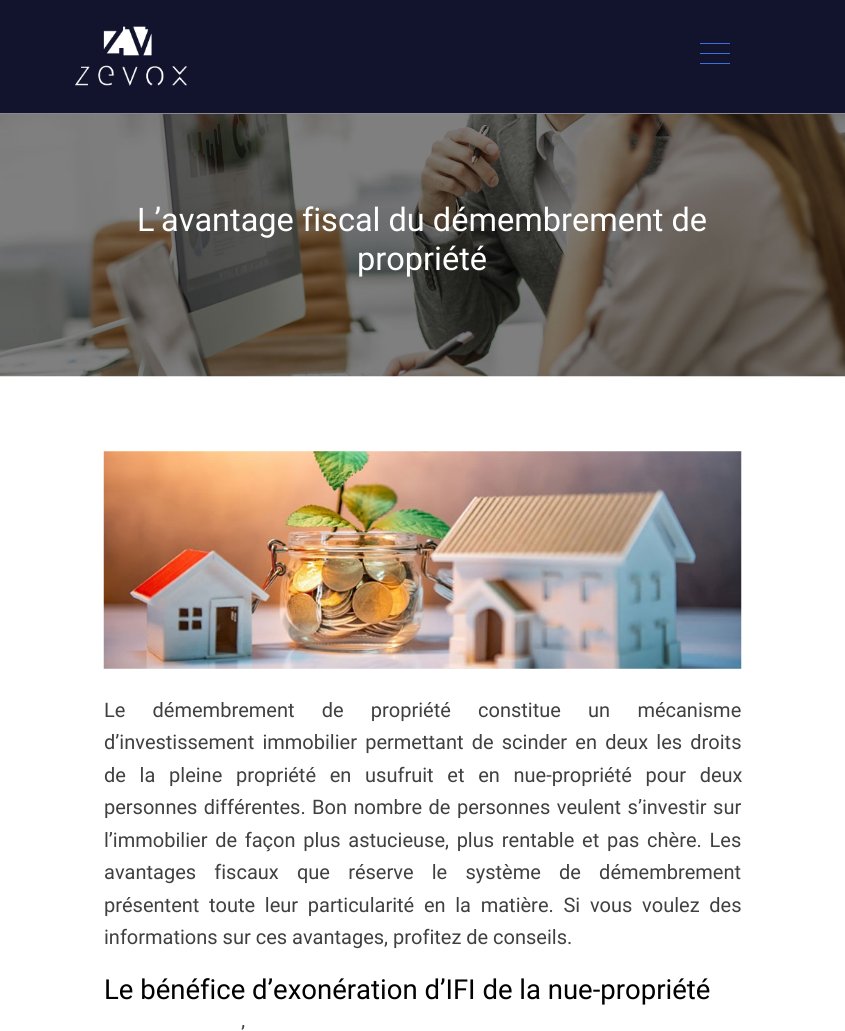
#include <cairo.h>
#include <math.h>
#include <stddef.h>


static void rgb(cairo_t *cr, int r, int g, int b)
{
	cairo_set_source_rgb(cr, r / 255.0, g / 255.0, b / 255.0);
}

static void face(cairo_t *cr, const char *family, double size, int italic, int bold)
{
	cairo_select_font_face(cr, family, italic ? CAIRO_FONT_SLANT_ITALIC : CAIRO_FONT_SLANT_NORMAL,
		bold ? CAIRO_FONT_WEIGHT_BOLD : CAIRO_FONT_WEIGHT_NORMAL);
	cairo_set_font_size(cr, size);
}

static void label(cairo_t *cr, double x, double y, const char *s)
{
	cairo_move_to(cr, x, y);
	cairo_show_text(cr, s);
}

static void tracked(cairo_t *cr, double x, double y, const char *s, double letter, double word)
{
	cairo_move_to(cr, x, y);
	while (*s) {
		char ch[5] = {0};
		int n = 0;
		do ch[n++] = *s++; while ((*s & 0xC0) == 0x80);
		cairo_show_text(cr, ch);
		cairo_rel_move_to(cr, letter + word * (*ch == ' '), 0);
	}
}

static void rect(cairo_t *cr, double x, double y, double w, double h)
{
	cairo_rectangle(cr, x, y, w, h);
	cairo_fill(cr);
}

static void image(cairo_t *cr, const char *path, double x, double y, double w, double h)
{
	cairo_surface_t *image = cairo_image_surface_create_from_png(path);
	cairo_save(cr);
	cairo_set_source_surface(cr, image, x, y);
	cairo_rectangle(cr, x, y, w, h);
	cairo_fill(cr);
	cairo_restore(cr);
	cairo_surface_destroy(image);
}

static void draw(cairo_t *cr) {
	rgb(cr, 255, 255, 255);
	cairo_paint(cr);
	rgb(cr, 18, 19, 45);
	rect(cr, 0, 0, 845, 113);
	rgb(cr, 137, 137, 150);
	rect(cr, 0, 113, 845, 1);
	image(cr, "image0.png", 75, 26, 112, 60);
	rgb(cr, 62, 110, 223);
	rect(cr, 700, 43, 30, 1);
	rect(cr, 700, 53, 30, 1);
	rect(cr, 700, 63, 30, 1);
	image(cr, "image1.png", 0, 114, 845, 263);
	face(cr, "Roboto", 32.5, 0, 0);
	rgb(cr, 255, 255, 255);
	label(cr, 137, 231, "L’avantage fiscal du démembrement de");
	label(cr, 357, 270, "propriété");
	image(cr, "image2.png", 103, 451, 639, 218);
	face(cr, "Roboto", 20, 0, 0);
	rgb(cr, 64, 64, 64);
	tracked(cr, 104, 717, "Le démembrement de propriété constitue un mécanisme", 0, 22.25);
	tracked(cr, 104, 749, "d’investissement immobilier permettant de scinder en deux les droits", 0, 3.25);
	tracked(cr, 104, 782, "de la pleine propriété en usufruit et en nue-propriété pour deux", 0, 8.75);
	tracked(cr, 104, 814, "personnes différentes. Bon nombre de personnes veulent s’investir sur", 0, 1.5);
	tracked(cr, 104, 847, "l’immobilier de façon plus astucieuse, plus rentable et pas chère. Les", 0, 2.75);
	tracked(cr, 104, 879, "avantages fiscaux que réserve le système de démembrement", 0, 13.25);
	tracked(cr, 104, 912, "présentent toute leur particularité en la matière. Si vous voulez des", 0, 4.75);
	label(cr, 104, 944, "informations sur ces avantages, profitez de conseils.");
	face(cr, "Roboto", 27.5, 0, 0);
	rgb(cr, 0, 0, 0);
	label(cr, 104, 999, "Le bénéfice d’exonération d’IFI de la nue-propriété");
	face(cr, "Roboto", 20, 0, 0);
	rgb(cr, 64, 64, 64);
	label(cr, 241, 1040, "’");
}

int main(void) {
	cairo_surface_t *surface = cairo_image_surface_create(CAIRO_FORMAT_RGB24, 845, 1031);
	cairo_t *cr = cairo_create(surface);
	cairo_font_options_t *options = cairo_font_options_create();
	cairo_font_options_set_hint_metrics(options, CAIRO_HINT_METRICS_OFF);
	cairo_font_options_set_hint_style(options, CAIRO_HINT_STYLE_NONE);
	cairo_set_font_options(cr, options);
	cairo_set_miter_limit(cr, 4);
	draw(cr);
	cairo_surface_write_to_png(surface, "render.png");
	cairo_font_options_destroy(options);
	cairo_destroy(cr);
	cairo_surface_destroy(surface);
	return 0;
}
